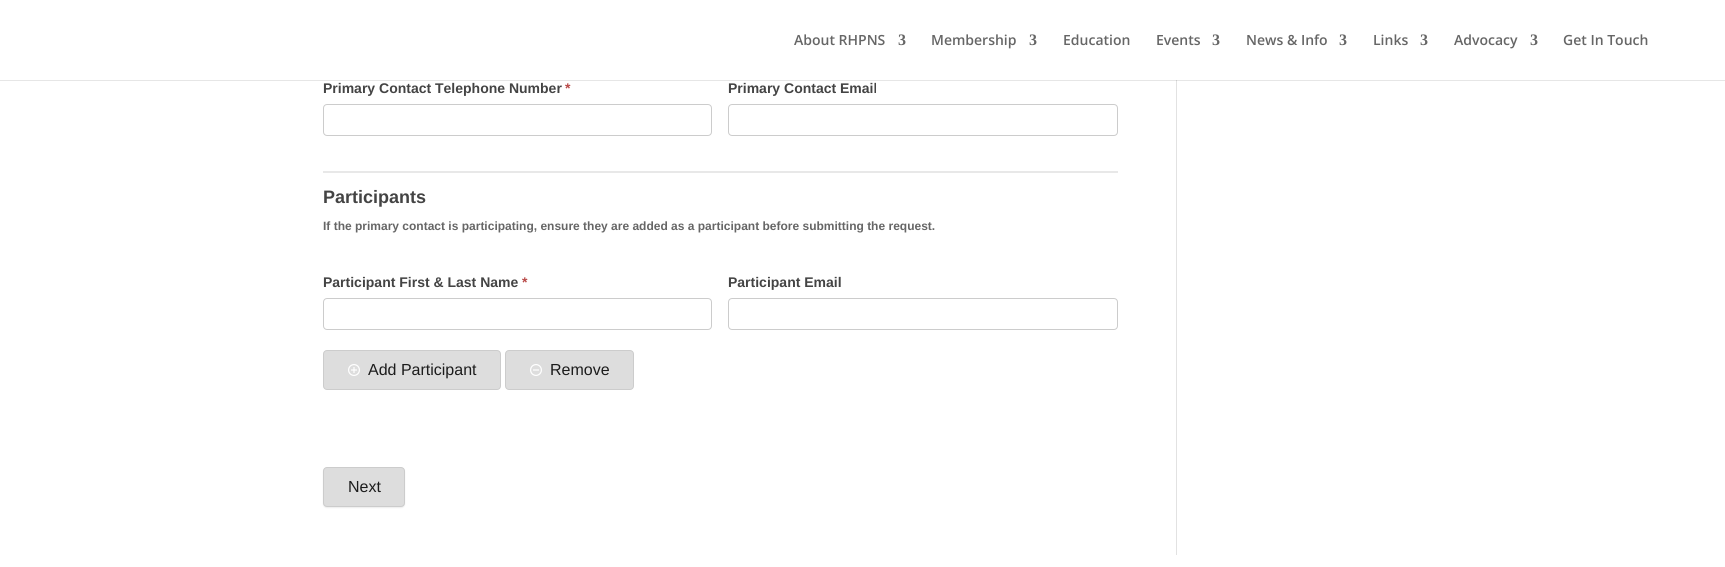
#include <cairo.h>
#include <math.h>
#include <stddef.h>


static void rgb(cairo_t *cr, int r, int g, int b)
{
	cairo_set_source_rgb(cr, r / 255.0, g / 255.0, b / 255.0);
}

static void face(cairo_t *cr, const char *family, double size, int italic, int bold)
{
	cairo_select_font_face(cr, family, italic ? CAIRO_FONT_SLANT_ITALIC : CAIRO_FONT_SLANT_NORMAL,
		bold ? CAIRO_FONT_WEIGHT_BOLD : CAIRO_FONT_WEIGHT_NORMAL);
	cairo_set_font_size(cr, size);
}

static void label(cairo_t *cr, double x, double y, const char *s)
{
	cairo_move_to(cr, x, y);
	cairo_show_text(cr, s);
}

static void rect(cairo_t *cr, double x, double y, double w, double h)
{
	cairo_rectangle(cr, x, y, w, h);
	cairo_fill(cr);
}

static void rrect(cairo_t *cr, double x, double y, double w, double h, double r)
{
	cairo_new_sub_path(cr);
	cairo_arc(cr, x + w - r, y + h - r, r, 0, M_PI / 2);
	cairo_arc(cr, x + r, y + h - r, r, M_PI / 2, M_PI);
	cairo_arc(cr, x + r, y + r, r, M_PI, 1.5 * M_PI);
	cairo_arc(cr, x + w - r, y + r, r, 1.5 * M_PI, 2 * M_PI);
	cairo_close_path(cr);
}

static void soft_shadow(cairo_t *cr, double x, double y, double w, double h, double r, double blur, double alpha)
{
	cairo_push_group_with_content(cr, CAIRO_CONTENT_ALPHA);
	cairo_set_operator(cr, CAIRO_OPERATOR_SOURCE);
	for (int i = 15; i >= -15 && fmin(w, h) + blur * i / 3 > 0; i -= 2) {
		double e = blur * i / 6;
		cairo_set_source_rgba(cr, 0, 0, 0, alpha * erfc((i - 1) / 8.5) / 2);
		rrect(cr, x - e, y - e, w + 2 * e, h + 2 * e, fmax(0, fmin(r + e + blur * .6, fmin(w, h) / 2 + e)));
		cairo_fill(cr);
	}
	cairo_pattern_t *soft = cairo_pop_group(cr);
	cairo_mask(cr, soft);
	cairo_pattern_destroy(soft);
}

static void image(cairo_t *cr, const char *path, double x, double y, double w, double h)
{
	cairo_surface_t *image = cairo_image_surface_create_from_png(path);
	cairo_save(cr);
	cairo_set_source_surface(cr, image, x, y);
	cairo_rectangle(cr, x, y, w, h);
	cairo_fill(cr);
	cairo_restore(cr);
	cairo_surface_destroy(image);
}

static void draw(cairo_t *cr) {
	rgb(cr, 255, 255, 255);
	cairo_paint(cr);
	rgb(cr, 230, 230, 230);
	rect(cr, 0, 80, 1725, 1);
	face(cr, "Open Sans SemiBold", 14, 0, 0);
	rgb(cr, 102, 102, 102);
	label(cr, 794, 45, "About RHPNS");
	face(cr, "Liberation Serif", 16, 0, 1);
	label(cr, 898, 45, "3");
	face(cr, "Open Sans SemiBold", 14, 0, 0);
	label(cr, 931, 45, "Membership");
	face(cr, "Liberation Serif", 16, 0, 1);
	label(cr, 1029, 45, "3");
	face(cr, "Open Sans SemiBold", 14, 0, 0);
	label(cr, 1063, 45, "Education");
	label(cr, 1156, 45, "Events");
	face(cr, "Liberation Serif", 16, 0, 1);
	label(cr, 1212, 45, "3");
	face(cr, "Open Sans SemiBold", 14, 0, 0);
	label(cr, 1246, 45, "News & Info");
	face(cr, "Liberation Serif", 16, 0, 1);
	label(cr, 1339, 45, "3");
	face(cr, "Open Sans SemiBold", 14, 0, 0);
	label(cr, 1373, 45, "Links");
	face(cr, "Liberation Serif", 16, 0, 1);
	label(cr, 1420, 45, "3");
	face(cr, "Open Sans SemiBold", 14, 0, 0);
	label(cr, 1454, 45, "Advocacy");
	face(cr, "Liberation Serif", 16, 0, 1);
	label(cr, 1530, 45, "3");
	face(cr, "Open Sans SemiBold", 14, 0, 0);
	label(cr, 1563, 45, "Get In Touch");
	face(cr, "Liberation Sans", 14, 0, 1);
	rgb(cr, 68, 68, 68);
	label(cr, 323, 93, "Primary Contact Telephone Number");
	rgb(cr, 185, 74, 72);
	label(cr, 565, 93, "*");
	rrect(cr, 323.5, 104.5, 388, 31, 3.5);
	rgb(cr, 204, 204, 204);
	cairo_set_line_width(cr, 1);
	cairo_stroke(cr);
	rgb(cr, 68, 68, 68);
	label(cr, 728, 93, "Primary Contact Email");
	rrect(cr, 728.5, 104.5, 389, 31, 3.5);
	rgb(cr, 204, 204, 204);
	cairo_stroke(cr);
	rgb(cr, 232, 232, 232);
	rect(cr, 323, 171, 795, 2);
	face(cr, "Liberation Sans", 18, 0, 1);
	rgb(cr, 68, 68, 68);
	label(cr, 323, 203, "Participants");
	face(cr, "Liberation Sans", 12, 0, 1);
	rgb(cr, 102, 102, 102);
	label(cr, 323, 230, "If the primary contact is participating, ensure they are added as a participant before submitting the request.");
	face(cr, "Liberation Sans", 14, 0, 1);
	rgb(cr, 68, 68, 68);
	label(cr, 323, 287, "Participant First & Last Name");
	rgb(cr, 185, 74, 72);
	label(cr, 522, 287, "*");
	rrect(cr, 323.5, 298.5, 388, 31, 3.5);
	rgb(cr, 204, 204, 204);
	cairo_stroke(cr);
	rgb(cr, 68, 68, 68);
	label(cr, 728, 287, "Participant Email");
	rrect(cr, 728.5, 298.5, 389, 31, 3.5);
	rgb(cr, 204, 204, 204);
	cairo_stroke(cr);
	rgb(cr, 221, 221, 221);
	rrect(cr, 323.5, 350.5, 177, 39, 3.5);
	cairo_fill_preserve(cr);
	rgb(cr, 204, 204, 204);
	cairo_stroke(cr);
	image(cr, "image0.png", 348, 364, 12, 12);
	face(cr, "Liberation Sans", 16, 0, 0);
	rgb(cr, 28, 28, 28);
	label(cr, 368, 375, "Add Participant");
	rgb(cr, 221, 221, 221);
	rrect(cr, 505.5, 350.5, 128, 39, 3.5);
	cairo_fill_preserve(cr);
	rgb(cr, 204, 204, 204);
	cairo_stroke(cr);
	image(cr, "image1.png", 530, 364, 12, 12);
	rgb(cr, 28, 28, 28);
	label(cr, 550, 375, "Remove");
	rgb(cr, 238, 238, 238);
	soft_shadow(cr, 323, 468, 82, 40, 4, 0.5, 1);
	rgb(cr, 221, 221, 221);
	rrect(cr, 323.5, 467.5, 81, 39, 3.5);
	cairo_fill_preserve(cr);
	rgb(cr, 204, 204, 204);
	cairo_stroke(cr);
	rgb(cr, 28, 28, 28);
	label(cr, 348, 492, "Next");
	rgb(cr, 226, 226, 226);
	rect(cr, 1176, 81, 1, 474);
	rgb(cr, 203, 203, 203);
	rect(cr, 1176, 80, 1, 1);
}

int main(void) {
	cairo_surface_t *surface = cairo_image_surface_create(CAIRO_FORMAT_RGB24, 1725, 567);
	cairo_t *cr = cairo_create(surface);
	cairo_font_options_t *options = cairo_font_options_create();
	cairo_font_options_set_hint_metrics(options, CAIRO_HINT_METRICS_OFF);
	cairo_font_options_set_hint_style(options, CAIRO_HINT_STYLE_NONE);
	cairo_set_font_options(cr, options);
	cairo_set_miter_limit(cr, 4);
	draw(cr);
	cairo_surface_write_to_png(surface, "render.png");
	cairo_font_options_destroy(options);
	cairo_destroy(cr);
	cairo_surface_destroy(surface);
	return 0;
}
